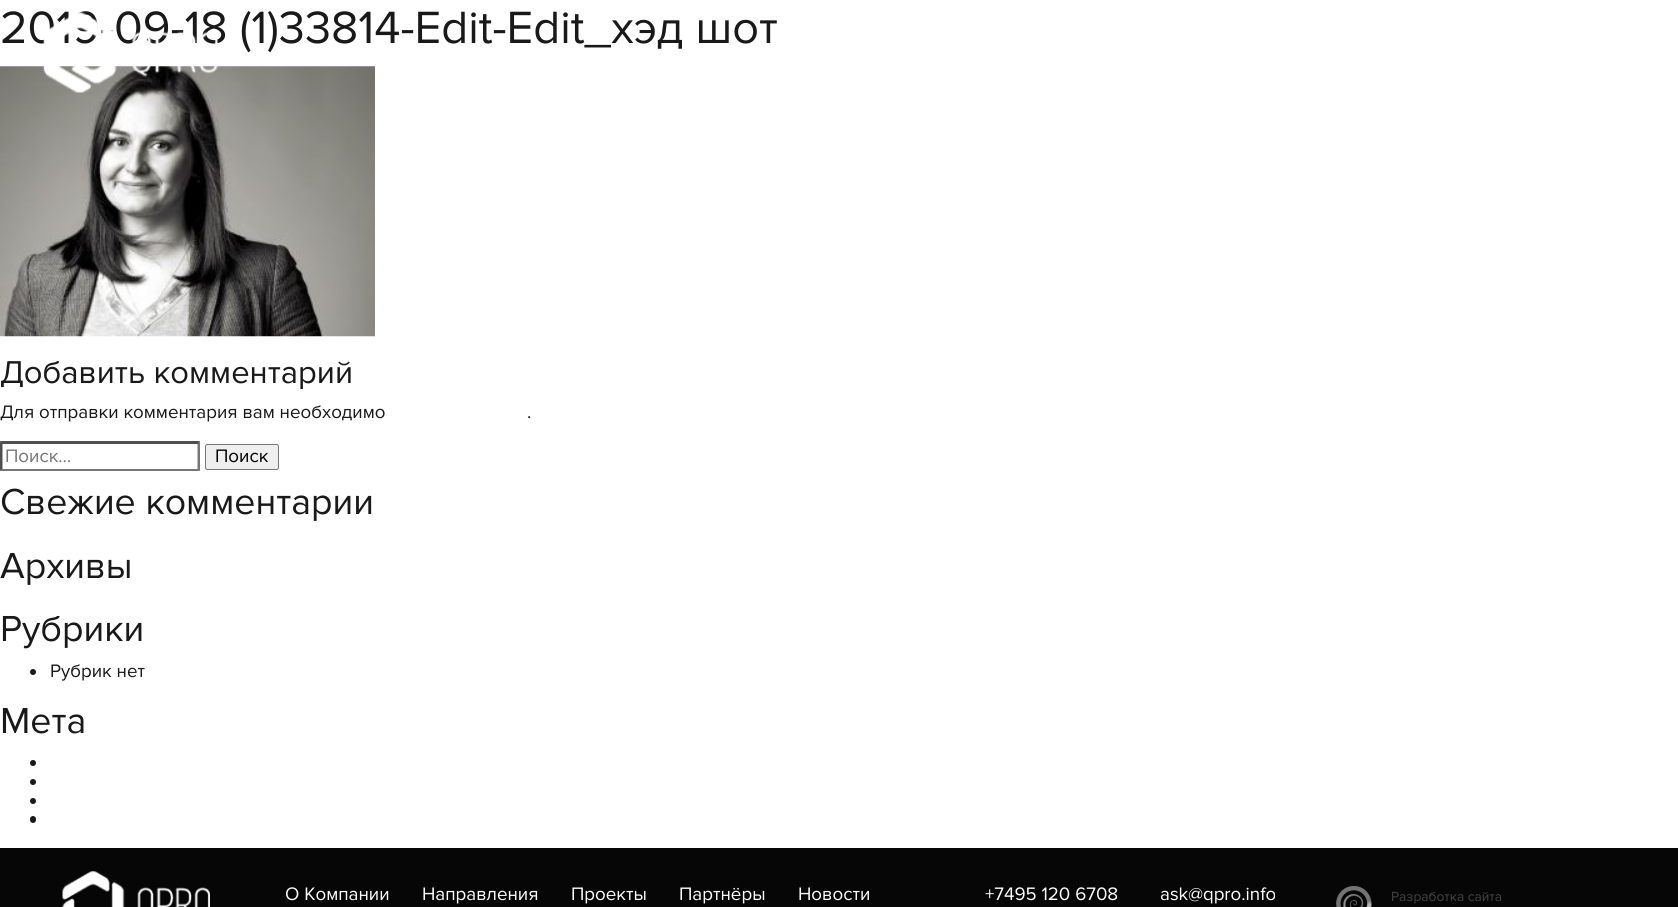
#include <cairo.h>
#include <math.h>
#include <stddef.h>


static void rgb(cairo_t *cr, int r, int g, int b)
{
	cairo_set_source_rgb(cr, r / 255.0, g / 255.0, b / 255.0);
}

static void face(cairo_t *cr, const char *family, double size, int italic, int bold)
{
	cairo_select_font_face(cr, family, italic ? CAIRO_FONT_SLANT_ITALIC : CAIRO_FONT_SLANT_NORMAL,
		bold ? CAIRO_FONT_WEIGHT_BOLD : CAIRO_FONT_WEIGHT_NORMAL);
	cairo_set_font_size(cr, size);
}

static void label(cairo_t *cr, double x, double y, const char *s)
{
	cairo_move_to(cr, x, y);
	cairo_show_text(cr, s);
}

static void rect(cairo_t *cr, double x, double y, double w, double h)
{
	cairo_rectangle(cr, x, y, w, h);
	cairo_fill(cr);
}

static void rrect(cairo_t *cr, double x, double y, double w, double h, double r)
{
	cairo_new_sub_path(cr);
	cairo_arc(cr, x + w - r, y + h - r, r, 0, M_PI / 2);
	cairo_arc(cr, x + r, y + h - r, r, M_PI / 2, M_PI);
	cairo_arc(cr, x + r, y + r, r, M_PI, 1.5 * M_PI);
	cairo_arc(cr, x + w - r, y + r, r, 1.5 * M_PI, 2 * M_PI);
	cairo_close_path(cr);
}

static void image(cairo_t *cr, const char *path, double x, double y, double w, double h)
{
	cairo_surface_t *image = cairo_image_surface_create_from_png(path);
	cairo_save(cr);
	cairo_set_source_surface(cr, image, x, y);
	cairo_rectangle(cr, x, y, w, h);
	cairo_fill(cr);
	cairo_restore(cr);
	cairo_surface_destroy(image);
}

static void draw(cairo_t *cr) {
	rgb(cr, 255, 255, 255);
	cairo_paint(cr);
	face(cr, "Proxima Nova", 46.9, 0, 0);
	rgb(cr, 25, 25, 25);
	label(cr, 0, 43, "2019-09-18 (1)33814-Edit-Edit_хэд шот");
	image(cr, "image0.png", 0, 66, 375, 271);
	face(cr, "Proxima Nova", 32.75, 0, 0);
	label(cr, 0, 383, "Добавить комментарий");
	face(cr, "Proxima Nova", 18.75, 0, 0);
	label(cr, 0, 418, "Для отправки комментария вам необходимо");
	label(cr, 527, 418, ".");
	rgb(cr, 79, 79, 79);
	cairo_new_path(cr);
	cairo_move_to(cr, 0, 441);
	cairo_line_to(cr, 200, 441);
	cairo_line_to(cr, 198, 444);
	cairo_line_to(cr, 2, 444);
	cairo_close_path(cr);
	cairo_fill(cr);
	rgb(cr, 118, 118, 118);
	cairo_new_path(cr);
	cairo_move_to(cr, 200, 441);
	cairo_line_to(cr, 200, 471);
	cairo_line_to(cr, 197.5, 469);
	cairo_line_to(cr, 197.5, 444);
	cairo_close_path(cr);
	cairo_fill(cr);
	cairo_new_path(cr);
	cairo_move_to(cr, 200, 471);
	cairo_line_to(cr, 0, 471);
	cairo_line_to(cr, 2, 469);
	cairo_line_to(cr, 198, 469);
	cairo_close_path(cr);
	cairo_fill(cr);
	rgb(cr, 79, 79, 79);
	cairo_new_path(cr);
	cairo_move_to(cr, 0, 471);
	cairo_line_to(cr, 0, 441);
	cairo_line_to(cr, 2.5, 444);
	cairo_line_to(cr, 2.5, 469);
	cairo_close_path(cr);
	cairo_fill(cr);
	rgb(cr, 117, 117, 117);
	label(cr, 5, 462, "Поиск…");
	rgb(cr, 239, 239, 239);
	rrect(cr, 205.5, 444.5, 73, 25, 2);
	cairo_fill_preserve(cr);
	rgb(cr, 118, 118, 118);
	cairo_set_line_width(cr, 1);
	cairo_stroke(cr);
	rgb(cr, 0, 0, 0);
	label(cr, 215, 462, "Поиск");
	face(cr, "Proxima Nova", 37.5, 0, 0);
	rgb(cr, 25, 25, 25);
	label(cr, 0, 514, "Свежие комментарии");
	label(cr, 0, 578, "Архивы");
	label(cr, 0, 641, "Рубрики");
	cairo_new_path(cr);
	cairo_arc(cr, 33, 672, 3, 0, 2 * M_PI);
	cairo_fill(cr);
	face(cr, "Proxima Nova", 18.75, 0, 0);
	label(cr, 50, 677, "Рубрик нет");
	face(cr, "Proxima Nova", 37.5, 0, 0);
	label(cr, 0, 733, "Мета");
	cairo_new_path(cr);
	cairo_arc(cr, 33, 763, 3, 0, 2 * M_PI);
	cairo_fill(cr);
	cairo_arc(cr, 33, 782, 3, 0, 2 * M_PI);
	cairo_fill(cr);
	cairo_arc(cr, 33, 801, 3, 0, 2 * M_PI);
	cairo_fill(cr);
	rrect(cr, 30, 816, 6, 7, 3);
	cairo_fill(cr);
	image(cr, "image1.png", 43, 12, 175, 81);
	rgb(cr, 6, 6, 6);
	rect(cr, 0, 848, 1678, 59);
	image(cr, "image2.png", 62, 871, 148, 36);
	face(cr, "Proxima Nova", 18.75, 0, 0);
	rgb(cr, 255, 255, 255);
	label(cr, 285, 900, "О Компании");
	label(cr, 422, 900, "Направления");
	label(cr, 571, 900, "Проекты");
	label(cr, 679, 900, "Партнёры");
	label(cr, 798, 900, "Новости");
	label(cr, 985, 900, "+7495 120 6708");
	label(cr, 1160, 900, "ask@qpro.info");
	image(cr, "image3.png", 1336, 886, 36, 21);
	face(cr, "Proxima Nova", 13.75, 0, 0);
	rgb(cr, 68, 68, 68);
	label(cr, 1391, 901, "Разработка сайта");
}

int main(void) {
	cairo_surface_t *surface = cairo_image_surface_create(CAIRO_FORMAT_RGB24, 1678, 907);
	cairo_t *cr = cairo_create(surface);
	cairo_font_options_t *options = cairo_font_options_create();
	cairo_font_options_set_hint_metrics(options, CAIRO_HINT_METRICS_OFF);
	cairo_font_options_set_hint_style(options, CAIRO_HINT_STYLE_NONE);
	cairo_set_font_options(cr, options);
	cairo_set_miter_limit(cr, 4);
	draw(cr);
	cairo_surface_write_to_png(surface, "render.png");
	cairo_font_options_destroy(options);
	cairo_destroy(cr);
	cairo_surface_destroy(surface);
	return 0;
}
